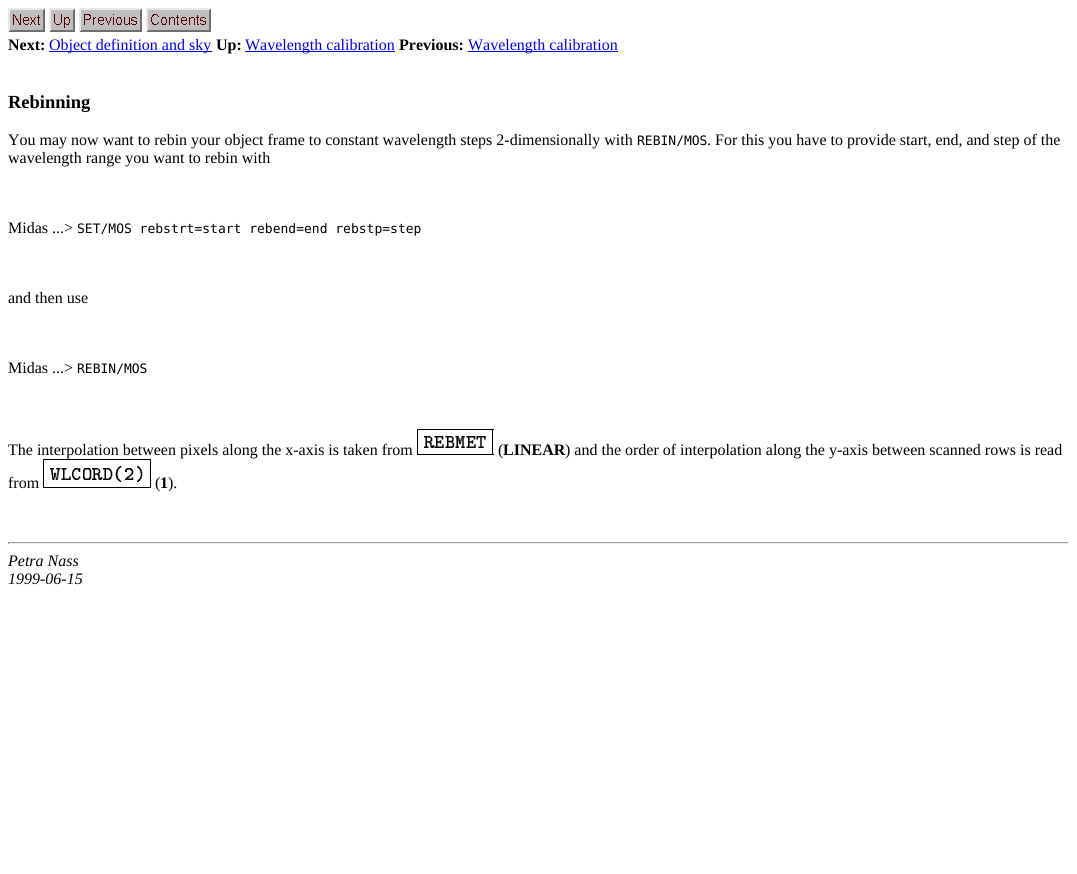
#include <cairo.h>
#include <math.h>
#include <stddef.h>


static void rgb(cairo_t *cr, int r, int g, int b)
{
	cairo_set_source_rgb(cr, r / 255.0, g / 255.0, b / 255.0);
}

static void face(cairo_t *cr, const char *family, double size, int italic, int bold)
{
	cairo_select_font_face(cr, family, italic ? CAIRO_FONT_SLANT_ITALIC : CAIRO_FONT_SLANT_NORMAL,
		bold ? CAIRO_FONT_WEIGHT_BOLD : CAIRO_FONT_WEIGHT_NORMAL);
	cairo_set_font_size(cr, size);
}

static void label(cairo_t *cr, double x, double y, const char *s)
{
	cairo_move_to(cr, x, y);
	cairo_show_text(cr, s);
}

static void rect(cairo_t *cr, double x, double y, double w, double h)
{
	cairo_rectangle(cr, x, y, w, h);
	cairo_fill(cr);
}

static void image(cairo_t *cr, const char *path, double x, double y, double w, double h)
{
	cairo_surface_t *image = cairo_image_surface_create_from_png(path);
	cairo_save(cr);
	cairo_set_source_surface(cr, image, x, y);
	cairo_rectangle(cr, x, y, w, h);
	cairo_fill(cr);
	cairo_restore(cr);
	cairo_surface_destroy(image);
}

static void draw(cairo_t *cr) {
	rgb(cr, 255, 255, 255);
	cairo_paint(cr);
	image(cr, "image0.png", 8, 8, 37, 24);
	image(cr, "image1.png", 49, 8, 26, 24);
	image(cr, "image2.png", 79, 8, 63, 24);
	image(cr, "image3.png", 146, 8, 65, 24);
	face(cr, "Liberation Serif", 16, 0, 1);
	rgb(cr, 0, 0, 0);
	label(cr, 8, 50, "Next:");
	rgb(cr, 0, 0, 238);
	rect(cr, 49, 51, 163, 1);
	face(cr, "Liberation Serif", 16, 0, 0);
	label(cr, 49, 50, "Object definition and sky");
	face(cr, "Liberation Serif", 16, 0, 1);
	rgb(cr, 0, 0, 0);
	label(cr, 216, 50, "Up:");
	rgb(cr, 0, 0, 238);
	rect(cr, 245, 51, 150, 1);
	face(cr, "Liberation Serif", 16, 0, 0);
	label(cr, 245, 50, "Wavelength calibration");
	face(cr, "Liberation Serif", 16, 0, 1);
	rgb(cr, 0, 0, 0);
	label(cr, 399, 50, "Previous:");
	rgb(cr, 0, 0, 238);
	rect(cr, 468, 51, 150, 1);
	face(cr, "Liberation Serif", 16, 0, 0);
	label(cr, 468, 50, "Wavelength calibration");
	face(cr, "Liberation Serif", 18.5, 0, 1);
	rgb(cr, 0, 0, 0);
	label(cr, 8, 108, "Rebinning");
	face(cr, "Liberation Serif", 16, 0, 0);
	label(cr, 8, 145, "You may now want to rebin your object frame to constant wavelength steps 2-dimensionally with");
	face(cr, "DejaVu Sans Mono", 13, 0, 0);
	label(cr, 637, 145, "REBIN/MOS");
	face(cr, "Liberation Serif", 16, 0, 0);
	label(cr, 707, 145, ". For this you have to provide start, end, and step of the");
	label(cr, 8, 163, "wavelength range you want to rebin with");
	label(cr, 8, 233, "Midas ...>");
	face(cr, "DejaVu Sans Mono", 13, 0, 0);
	label(cr, 77, 233, "SET/MOS rebstrt=start rebend=end rebstp=step");
	face(cr, "Liberation Serif", 16, 0, 0);
	label(cr, 8, 303, "and then use");
	label(cr, 8, 373, "Midas ...>");
	face(cr, "DejaVu Sans Mono", 13, 0, 0);
	label(cr, 77, 373, "REBIN/MOS");
	face(cr, "Liberation Serif", 16, 0, 0);
	label(cr, 8, 455, "The interpolation between pixels along the x-axis is taken from");
	image(cr, "image4.png", 417, 429, 77, 26);
	label(cr, 498, 455, "(");
	face(cr, "Liberation Serif", 16, 0, 1);
	label(cr, 503, 455, "LINEAR");
	face(cr, "Liberation Serif", 16, 0, 0);
	label(cr, 565, 455, ") and the order of interpolation along the y-axis between scanned rows is read");
	label(cr, 8, 488, "from");
	image(cr, "image5.png", 43, 459, 108, 29);
	label(cr, 155, 488, "(");
	face(cr, "Liberation Serif", 16, 0, 1);
	label(cr, 160, 488, "1");
	face(cr, "Liberation Serif", 16, 0, 0);
	label(cr, 168, 488, ").");
	rgb(cr, 159, 159, 159);
	rect(cr, 8, 542, 1061, 1);
	rgb(cr, 238, 238, 238);
	rect(cr, 1068, 542, 1, 2);
	rect(cr, 8, 543, 1061, 1);
	rgb(cr, 159, 159, 159);
	rect(cr, 8, 542, 1, 2);
	face(cr, "Liberation Serif", 16, 1, 0);
	rgb(cr, 0, 0, 0);
	label(cr, 8, 566, "Petra Nass");
	label(cr, 8, 584, "1999-06-15");
}

int main(void) {
	cairo_surface_t *surface = cairo_image_surface_create(CAIRO_FORMAT_RGB24, 1077, 874);
	cairo_t *cr = cairo_create(surface);
	cairo_font_options_t *options = cairo_font_options_create();
	cairo_font_options_set_hint_metrics(options, CAIRO_HINT_METRICS_OFF);
	cairo_font_options_set_hint_style(options, CAIRO_HINT_STYLE_NONE);
	cairo_set_font_options(cr, options);
	cairo_set_miter_limit(cr, 4);
	draw(cr);
	cairo_surface_write_to_png(surface, "render.png");
	cairo_font_options_destroy(options);
	cairo_destroy(cr);
	cairo_surface_destroy(surface);
	return 0;
}
